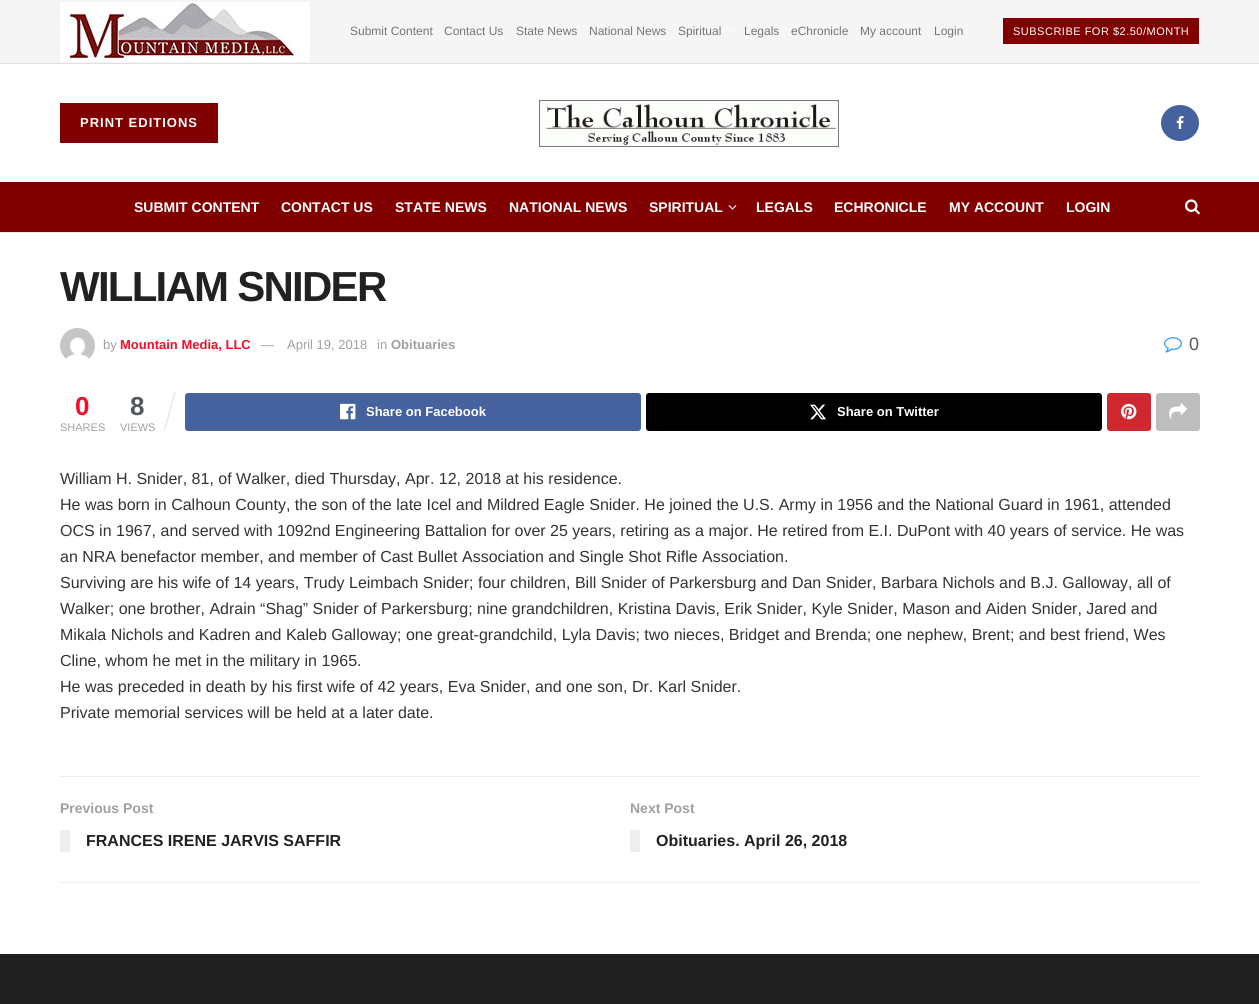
#include <cairo.h>
#include <math.h>
#include <stddef.h>


static void rgb(cairo_t *cr, int r, int g, int b)
{
	cairo_set_source_rgb(cr, r / 255.0, g / 255.0, b / 255.0);
}

static void face(cairo_t *cr, const char *family, double size, int italic, int bold)
{
	cairo_select_font_face(cr, family, italic ? CAIRO_FONT_SLANT_ITALIC : CAIRO_FONT_SLANT_NORMAL,
		bold ? CAIRO_FONT_WEIGHT_BOLD : CAIRO_FONT_WEIGHT_NORMAL);
	cairo_set_font_size(cr, size);
}

static void label(cairo_t *cr, double x, double y, const char *s)
{
	cairo_move_to(cr, x, y);
	cairo_show_text(cr, s);
}

static void tracked(cairo_t *cr, double x, double y, const char *s, double letter, double word)
{
	cairo_move_to(cr, x, y);
	while (*s) {
		char ch[5] = {0};
		int n = 0;
		do ch[n++] = *s++; while ((*s & 0xC0) == 0x80);
		cairo_show_text(cr, ch);
		cairo_rel_move_to(cr, letter + word * (*ch == ' '), 0);
	}
}

static void rect(cairo_t *cr, double x, double y, double w, double h)
{
	cairo_rectangle(cr, x, y, w, h);
	cairo_fill(cr);
}

static void rrect(cairo_t *cr, double x, double y, double w, double h, double r)
{
	cairo_new_sub_path(cr);
	cairo_arc(cr, x + w - r, y + h - r, r, 0, M_PI / 2);
	cairo_arc(cr, x + r, y + h - r, r, M_PI / 2, M_PI);
	cairo_arc(cr, x + r, y + r, r, M_PI, 1.5 * M_PI);
	cairo_arc(cr, x + w - r, y + r, r, 1.5 * M_PI, 2 * M_PI);
	cairo_close_path(cr);
}

static void image(cairo_t *cr, const char *path, double x, double y, double w, double h)
{
	cairo_surface_t *image = cairo_image_surface_create_from_png(path);
	cairo_save(cr);
	cairo_set_source_surface(cr, image, x, y);
	cairo_rectangle(cr, x, y, w, h);
	cairo_fill(cr);
	cairo_restore(cr);
	cairo_surface_destroy(image);
}

static void draw(cairo_t *cr) {
	rgb(cr, 255, 255, 255);
	cairo_paint(cr);
	rgb(cr, 245, 245, 245);
	rect(cr, 0, 0, 1259, 63);
	rgb(cr, 224, 224, 224);
	rect(cr, 0, 63, 1259, 1);
	image(cr, "image0.png", 60, 2, 250, 60);
	face(cr, "Liberation Sans", 12, 0, 0);
	rgb(cr, 117, 117, 117);
	label(cr, 350, 35, "Submit Content");
	label(cr, 444, 35, "Contact Us");
	label(cr, 516, 35, "State News");
	label(cr, 589, 35, "National News");
	label(cr, 678, 35, "Spiritual");
	image(cr, "image1.png", 728, 29, 6, 4);
	label(cr, 744, 35, "Legals");
	label(cr, 791, 35, "eChronicle");
	label(cr, 860, 35, "My account");
	label(cr, 934, 35, "Login");
	rgb(cr, 128, 0, 0);
	rect(cr, 1003, 18, 196, 26);
	face(cr, "Liberation Sans", 11, 0, 0);
	rgb(cr, 255, 255, 255);
	tracked(cr, 1013, 35, "SUBSCRIBE FOR $2.50/MONTH", 0.5, 0);
	rgb(cr, 128, 0, 0);
	rect(cr, 60, 103, 158, 40);
	face(cr, "Liberation Sans", 13, 0, 1);
	rgb(cr, 255, 255, 255);
	tracked(cr, 80, 127, "PRINT EDITIONS", 1, 0);
	image(cr, "image2.png", 539, 100, 300, 47);
	rgb(cr, 69, 98, 159);
	cairo_new_path(cr);
	cairo_move_to(cr, 1180, 105);
	cairo_curve_to(cr, 1190.5, 105, 1199, 113, 1199, 123);
	cairo_curve_to(cr, 1199, 133, 1190.5, 141, 1180, 141);
	cairo_curve_to(cr, 1169.5, 141, 1161, 133, 1161, 123);
	cairo_curve_to(cr, 1161, 113, 1169.5, 105, 1180, 105);
	cairo_close_path(cr);
	cairo_fill(cr);
	image(cr, "image3.png", 1176, 116, 8, 13);
	rgb(cr, 128, 0, 0);
	rect(cr, 0, 182, 1259, 50);
	rgb(cr, 232, 232, 232);
	rect(cr, 0, 232, 1259, 1);
	face(cr, "Liberation Sans", 14, 0, 1);
	rgb(cr, 255, 255, 255);
	label(cr, 134, 212, "SUBMIT CONTENT");
	label(cr, 281, 212, "CONTACT US");
	label(cr, 395, 212, "STATE NEWS");
	label(cr, 509, 212, "NATIONAL NEWS");
	label(cr, 649, 212, "SPIRITUAL");
	image(cr, "image4.png", 728, 205, 9, 5);
	label(cr, 756, 212, "LEGALS");
	label(cr, 834, 212, "ECHRONICLE");
	label(cr, 949, 212, "MY ACCOUNT");
	label(cr, 1066, 212, "LOGIN");
	image(cr, "image5.png", 1185, 199, 15, 16);
	face(cr, "Liberation Sans", 42, 0, 1);
	rgb(cr, 33, 33, 33);
	tracked(cr, 60, 301, "WILLIAM SNIDER", -1.75, 0);
	image(cr, "image6.png", 60, 328, 35, 31);
	face(cr, "Liberation Sans", 13, 0, 0);
	rgb(cr, 160, 160, 160);
	label(cr, 103, 349, "by");
	face(cr, "Liberation Sans", 13, 0, 1);
	rgb(cr, 247, 13, 40);
	label(cr, 120, 349, "Mountain Media, LLC");
	face(cr, "Liberation Sans", 13, 0, 0);
	rgb(cr, 160, 160, 160);
	label(cr, 261, 349, "—");
	label(cr, 287, 349, "April 19, 2018");
	label(cr, 377, 349, "in");
	face(cr, "Liberation Sans", 13, 0, 1);
	label(cr, 391, 349, "Obituaries");
	image(cr, "image7.png", 1164, 337, 18, 16);
	face(cr, "Liberation Sans", 18, 0, 0);
	rgb(cr, 83, 88, 92);
	label(cr, 1189, 350, "0");
	face(cr, "Liberation Sans", 26, 0, 1);
	rgb(cr, 247, 13, 40);
	label(cr, 75, 415, "0");
	face(cr, "Liberation Sans", 11, 0, 0);
	rgb(cr, 160, 160, 160);
	label(cr, 60, 431, "SHARES");
	face(cr, "Liberation Sans", 26, 0, 1);
	rgb(cr, 83, 88, 92);
	label(cr, 130, 415, "8");
	rgb(cr, 224, 224, 224);
	cairo_new_path(cr);
	cairo_move_to(cr, 174.5, 391.5);
	cairo_line_to(cr, 175.5, 392);
	cairo_line_to(cr, 165, 430.5);
	cairo_line_to(cr, 164, 430.5);
	cairo_close_path(cr);
	cairo_fill(cr);
	face(cr, "Liberation Sans", 11, 0, 0);
	rgb(cr, 160, 160, 160);
	label(cr, 120, 431, "VIEWS");
	rgb(cr, 69, 98, 159);
	rrect(cr, 185, 393, 456, 38, 3);
	cairo_fill(cr);
	image(cr, "image8.png", 340, 403, 16, 17);
	face(cr, "Liberation Sans", 13, 0, 1);
	rgb(cr, 255, 255, 255);
	label(cr, 366, 416, "Share on Facebook");
	rgb(cr, 0, 0, 0);
	rrect(cr, 646, 393, 456, 38, 3);
	cairo_fill(cr);
	image(cr, "image9.png", 810, 404, 16, 16);
	rgb(cr, 255, 255, 255);
	label(cr, 837, 416, "Share on Twitter");
	rgb(cr, 207, 40, 48);
	rrect(cr, 1107, 393, 44, 38, 3);
	cairo_fill(cr);
	image(cr, "image10.png", 1121, 403, 16, 17);
	rgb(cr, 189, 189, 189);
	rrect(cr, 1156, 393, 44, 38, 3);
	cairo_fill(cr);
	image(cr, "image11.png", 1169, 403, 18, 17);
	face(cr, "Liberation Sans", 16, 0, 0);
	rgb(cr, 51, 51, 51);
	label(cr, 60, 484, "William H. Snider, 81, of Walker, died Thursday, Apr. 12, 2018 at his residence.");
	label(cr, 60, 510, "He was born in Calhoun County, the son of the late Icel and Mildred Eagle Snider. He joined the U.S. Army in 1956 and the National Guard in 1961, attended");
	label(cr, 60, 536, "OCS in 1967, and served with 1092nd Engineering Battalion for over 25 years, retiring as a major. He retired from E.I. DuPont with 40 years of service. He was");
	label(cr, 60, 562, "an NRA benefactor member, and member of Cast Bullet Association and Single Shot Rifle Association.");
	label(cr, 60, 588, "Surviving are his wife of 14 years, Trudy Leimbach Snider; four children, Bill Snider of Parkersburg and Dan Snider, Barbara Nichols and B.J. Galloway, all of");
	label(cr, 60, 614, "Walker; one brother, Adrain “Shag” Snider of Parkersburg; nine grandchildren, Kristina Davis, Erik Snider, Kyle Snider, Mason and Aiden Snider, Jared and");
	label(cr, 60, 640, "Mikala Nichols and Kadren and Kaleb Galloway; one great-grandchild, Lyla Davis; two nieces, Bridget and Brenda; one nephew, Brent; and best friend, Wes");
	label(cr, 60, 666, "Cline, whom he met in the military in 1965.");
	label(cr, 60, 692, "He was preceded in death by his first wife of 42 years, Eva Snider, and one son, Dr. Karl Snider.");
	label(cr, 60, 718, "Private memorial services will be held at a later date.");
	rgb(cr, 238, 238, 238);
	rect(cr, 60, 776, 1140, 1);
	rect(cr, 60, 882, 1140, 1);
	face(cr, "Liberation Sans", 14, 0, 1);
	rgb(cr, 160, 160, 160);
	label(cr, 60, 813, "Previous Post");
	rgb(cr, 238, 238, 238);
	rect(cr, 60, 830, 10, 22);
	face(cr, "Liberation Sans", 16, 0, 1);
	rgb(cr, 33, 33, 33);
	label(cr, 86, 846, "FRANCES IRENE JARVIS SAFFIR");
	face(cr, "Liberation Sans", 14, 0, 1);
	rgb(cr, 160, 160, 160);
	label(cr, 630, 813, "Next Post");
	rgb(cr, 238, 238, 238);
	rect(cr, 630, 830, 10, 22);
	face(cr, "Liberation Sans", 16, 0, 1);
	rgb(cr, 33, 33, 33);
	label(cr, 656, 846, "Obituaries. April 26, 2018");
	rect(cr, 0, 954, 1259, 50);
}

int main(void) {
	cairo_surface_t *surface = cairo_image_surface_create(CAIRO_FORMAT_RGB24, 1259, 1004);
	cairo_t *cr = cairo_create(surface);
	cairo_font_options_t *options = cairo_font_options_create();
	cairo_font_options_set_hint_metrics(options, CAIRO_HINT_METRICS_OFF);
	cairo_font_options_set_hint_style(options, CAIRO_HINT_STYLE_NONE);
	cairo_set_font_options(cr, options);
	cairo_set_miter_limit(cr, 4);
	draw(cr);
	cairo_surface_write_to_png(surface, "render.png");
	cairo_font_options_destroy(options);
	cairo_destroy(cr);
	cairo_surface_destroy(surface);
	return 0;
}
